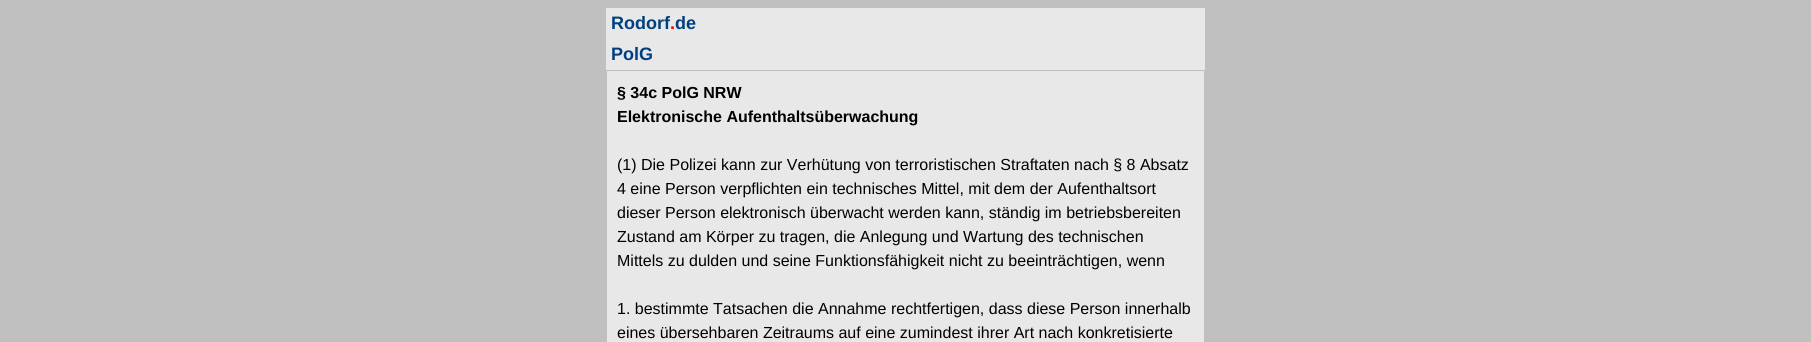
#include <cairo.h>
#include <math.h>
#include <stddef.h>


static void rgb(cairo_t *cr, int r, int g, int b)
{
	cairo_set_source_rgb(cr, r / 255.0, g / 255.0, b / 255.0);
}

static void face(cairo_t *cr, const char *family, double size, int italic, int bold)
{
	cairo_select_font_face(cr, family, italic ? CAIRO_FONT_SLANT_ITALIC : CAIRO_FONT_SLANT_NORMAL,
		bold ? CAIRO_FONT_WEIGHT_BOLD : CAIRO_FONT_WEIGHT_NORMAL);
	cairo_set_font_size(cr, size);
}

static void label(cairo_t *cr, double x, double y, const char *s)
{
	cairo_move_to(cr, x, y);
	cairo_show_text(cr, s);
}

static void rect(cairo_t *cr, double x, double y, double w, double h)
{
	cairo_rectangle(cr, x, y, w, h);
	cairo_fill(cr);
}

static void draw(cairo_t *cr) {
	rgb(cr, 192, 192, 192);
	cairo_paint(cr);
	rgb(cr, 232, 232, 232);
	rect(cr, 606, 8, 599, 62);
	face(cr, "Liberation Sans", 18, 0, 1);
	rgb(cr, 0, 64, 128);
	label(cr, 611, 29, "Rodorf de");
	rgb(cr, 255, 0, 0);
	label(cr, 670, 29, ".");
	rgb(cr, 0, 64, 128);
	label(cr, 611, 60, "PolG");
	rgb(cr, 232, 232, 232);
	rect(cr, 607, 71, 597, 271);
	face(cr, "Liberation Sans", 16, 0, 1);
	rgb(cr, 0, 0, 0);
	label(cr, 617, 98, "§ 34c PolG NRW");
	label(cr, 617, 122, "Elektronische Aufenthaltsüberwachung");
	face(cr, "Liberation Sans", 16, 0, 0);
	label(cr, 617, 170, "(1) Die Polizei kann zur Verhütung von terroristischen Straftaten nach § 8 Absatz");
	label(cr, 617, 194, "4 eine Person verpflichten ein technisches Mittel, mit dem der Aufenthaltsort");
	label(cr, 617, 218, "dieser Person elektronisch überwacht werden kann, ständig im betriebsbereiten");
	label(cr, 617, 242, "Zustand am Körper zu tragen, die Anlegung und Wartung des technischen");
	label(cr, 617, 266, "Mittels zu dulden und seine Funktionsfähigkeit nicht zu beeinträchtigen, wenn");
	label(cr, 617, 314, "1. bestimmte Tatsachen die Annahme rechtfertigen, dass diese Person innerhalb");
	label(cr, 617, 338, "eines übersehbaren Zeitraums auf eine zumindest ihrer Art nach konkretisierte");
}

int main(void) {
	cairo_surface_t *surface = cairo_image_surface_create(CAIRO_FORMAT_RGB24, 1811, 342);
	cairo_t *cr = cairo_create(surface);
	cairo_font_options_t *options = cairo_font_options_create();
	cairo_font_options_set_hint_metrics(options, CAIRO_HINT_METRICS_OFF);
	cairo_font_options_set_hint_style(options, CAIRO_HINT_STYLE_NONE);
	cairo_set_font_options(cr, options);
	cairo_set_miter_limit(cr, 4);
	draw(cr);
	cairo_surface_write_to_png(surface, "render.png");
	cairo_font_options_destroy(options);
	cairo_destroy(cr);
	cairo_surface_destroy(surface);
	return 0;
}
